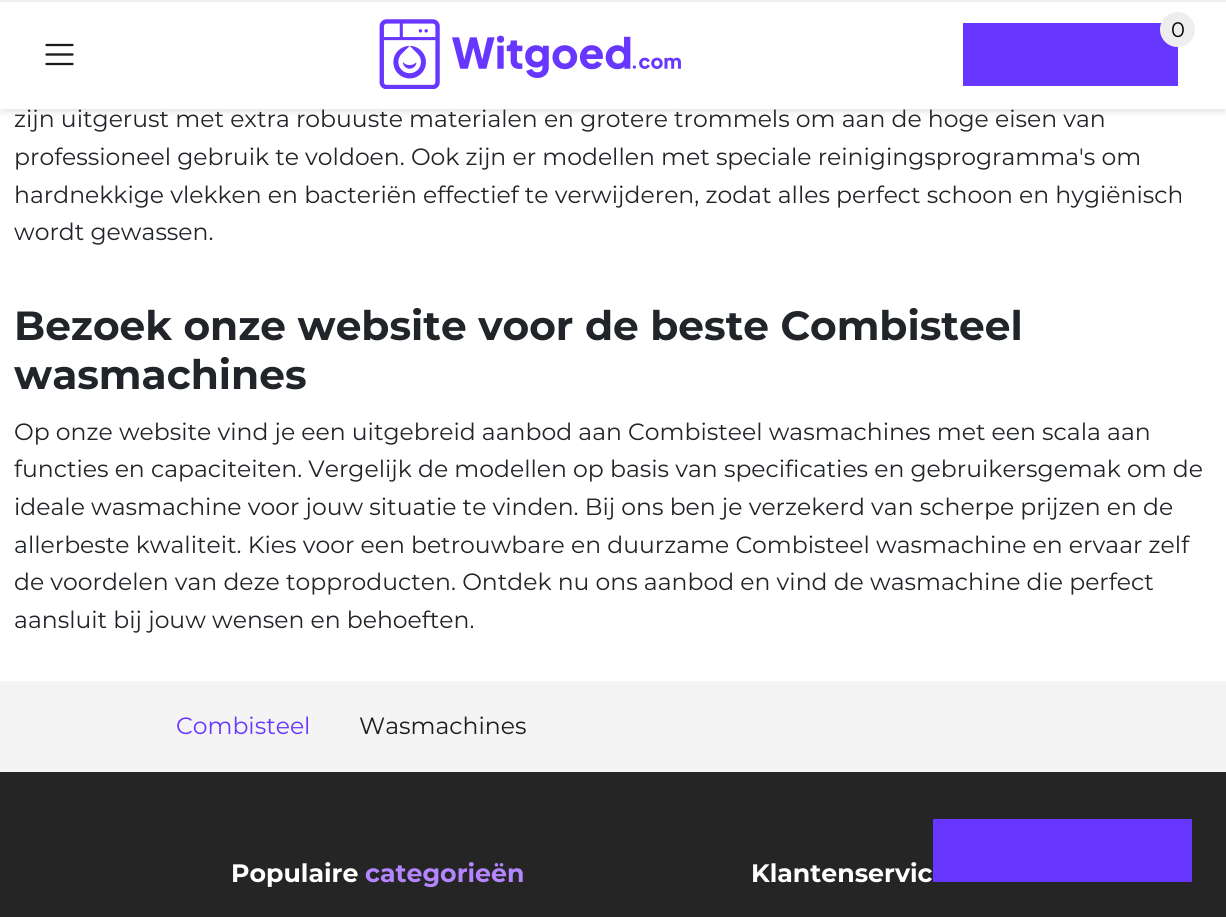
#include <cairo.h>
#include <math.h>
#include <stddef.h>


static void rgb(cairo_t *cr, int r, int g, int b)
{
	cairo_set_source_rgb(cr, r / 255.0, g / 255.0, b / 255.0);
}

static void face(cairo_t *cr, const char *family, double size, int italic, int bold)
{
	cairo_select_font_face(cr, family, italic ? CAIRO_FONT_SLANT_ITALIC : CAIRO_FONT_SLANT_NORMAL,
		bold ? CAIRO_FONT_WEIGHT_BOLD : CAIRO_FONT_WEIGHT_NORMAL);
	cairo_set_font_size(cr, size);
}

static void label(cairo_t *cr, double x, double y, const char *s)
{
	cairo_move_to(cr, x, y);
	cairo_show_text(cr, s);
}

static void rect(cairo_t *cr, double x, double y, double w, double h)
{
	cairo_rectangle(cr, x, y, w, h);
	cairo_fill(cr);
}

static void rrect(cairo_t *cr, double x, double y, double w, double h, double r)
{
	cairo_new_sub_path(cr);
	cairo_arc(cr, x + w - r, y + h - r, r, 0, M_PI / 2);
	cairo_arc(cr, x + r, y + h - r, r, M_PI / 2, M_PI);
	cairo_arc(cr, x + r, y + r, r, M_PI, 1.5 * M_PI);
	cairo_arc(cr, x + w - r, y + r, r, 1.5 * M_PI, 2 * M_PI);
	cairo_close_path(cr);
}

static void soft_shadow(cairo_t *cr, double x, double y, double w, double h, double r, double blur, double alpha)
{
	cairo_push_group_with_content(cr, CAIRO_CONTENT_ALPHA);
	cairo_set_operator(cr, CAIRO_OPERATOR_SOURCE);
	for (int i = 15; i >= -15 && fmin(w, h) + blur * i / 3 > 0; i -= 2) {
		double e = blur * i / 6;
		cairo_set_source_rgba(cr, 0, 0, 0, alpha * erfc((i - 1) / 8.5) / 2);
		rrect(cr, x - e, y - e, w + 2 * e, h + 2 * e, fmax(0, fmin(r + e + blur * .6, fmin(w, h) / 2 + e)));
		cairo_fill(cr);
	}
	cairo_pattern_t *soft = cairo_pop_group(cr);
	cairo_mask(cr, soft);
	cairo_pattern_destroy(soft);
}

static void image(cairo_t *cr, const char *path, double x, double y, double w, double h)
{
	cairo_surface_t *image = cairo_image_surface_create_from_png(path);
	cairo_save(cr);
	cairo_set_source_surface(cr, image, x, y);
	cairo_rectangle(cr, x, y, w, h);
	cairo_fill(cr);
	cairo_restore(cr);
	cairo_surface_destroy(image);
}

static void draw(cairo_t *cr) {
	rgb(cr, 255, 255, 255);
	cairo_paint(cr);
	rgb(cr, 0, 0, 0);
	soft_shadow(cr, 2, 5, 1223, 105, 0, 4.5, 0.15);
	rgb(cr, 255, 255, 255);
	rect(cr, 0, 2, 1226, 107);
	rgb(cr, 238, 238, 238);
	rect(cr, 0, 0, 1226, 2);
	image(cr, "image0.png", 379, 19, 302, 70);
	rgb(cr, 103, 55, 255);
	rect(cr, 963, 23, 215, 63);
	rgb(cr, 238, 238, 238);
	cairo_arc(cr, 1177.5, 29.5, 17.5, 0, 2 * M_PI);
	cairo_fill(cr);
	face(cr, "Montserrat", 21, 0, 0);
	rgb(cr, 0, 0, 0);
	label(cr, 1171, 37, "0");
	cairo_new_path(cr);
	cairo_move_to(cr, 46.5, 45);
	cairo_line_to(cr, 72.5, 45);
	cairo_move_to(cr, 46.5, 54.5);
	cairo_line_to(cr, 72.5, 54.5);
	cairo_move_to(cr, 46.5, 64);
	cairo_line_to(cr, 72.5, 64);
	rgb(cr, 26, 26, 26);
	cairo_set_line_width(cr, 2.3);
	cairo_set_line_cap(cr, CAIRO_LINE_CAP_ROUND);
	cairo_stroke(cr);
	face(cr, "Montserrat", 23.52, 0, 0);
	rgb(cr, 33, 37, 41);
	label(cr, 14, 127, "zijn uitgerust met extra robuuste materialen en grotere trommels om aan de hoge eisen van");
	label(cr, 14, 165, "professioneel gebruik te voldoen. Ook zijn er modellen met speciale reinigingsprogramma's om");
	label(cr, 14, 203, "hardnekkige vlekken en bacteriën effectief te verwijderen, zodat alles perfect schoon en hygiënisch");
	label(cr, 14, 240, "wordt gewassen.");
	face(cr, "Montserrat", 40.7, 0, 1);
	label(cr, 14, 340, "Bezoek onze website voor de beste Combisteel");
	label(cr, 14, 389, "wasmachines");
	face(cr, "Montserrat", 23.52, 0, 0);
	label(cr, 14, 440, "Op onze website vind je een uitgebreid aanbod aan Combisteel wasmachines met een scala aan");
	label(cr, 14, 477, "functies en capaciteiten. Vergelijk de modellen op basis van specificaties en gebruikersgemak om de");
	label(cr, 14, 515, "ideale wasmachine voor jouw situatie te vinden. Bij ons ben je verzekerd van scherpe prijzen en de");
	label(cr, 14, 553, "allerbeste kwaliteit. Kies voor een betrouwbare en duurzame Combisteel wasmachine en ervaar zelf");
	label(cr, 14, 590, "de voordelen van deze topproducten. Ontdek nu ons aanbod en vind de wasmachine die perfect");
	label(cr, 14, 628, "aansluit bij jouw wensen en behoeften.");
	rgb(cr, 244, 244, 244);
	rect(cr, 0, 681, 1226, 91);
	rgb(cr, 103, 55, 255);
	label(cr, 176, 734, "Combisteel");
	rgb(cr, 29, 29, 29);
	label(cr, 359, 734, "Wasmachines");
	rgb(cr, 37, 37, 37);
	rect(cr, 0, 772, 1226, 145);
	face(cr, "Montserrat", 25.25, 0, 1);
	rgb(cr, 255, 255, 255);
	label(cr, 231, 882, "Populaire");
	rgb(cr, 181, 133, 255);
	label(cr, 365, 882, "categorieën");
	rgb(cr, 255, 255, 255);
	label(cr, 751, 882, "Klantenservic");
	rgb(cr, 103, 55, 255);
	rect(cr, 933, 819, 259, 63);
}

int main(void) {
	cairo_surface_t *surface = cairo_image_surface_create(CAIRO_FORMAT_RGB24, 1226, 917);
	cairo_t *cr = cairo_create(surface);
	cairo_font_options_t *options = cairo_font_options_create();
	cairo_font_options_set_hint_metrics(options, CAIRO_HINT_METRICS_OFF);
	cairo_font_options_set_hint_style(options, CAIRO_HINT_STYLE_NONE);
	cairo_set_font_options(cr, options);
	cairo_set_miter_limit(cr, 4);
	draw(cr);
	cairo_surface_write_to_png(surface, "render.png");
	cairo_font_options_destroy(options);
	cairo_destroy(cr);
	cairo_surface_destroy(surface);
	return 0;
}
